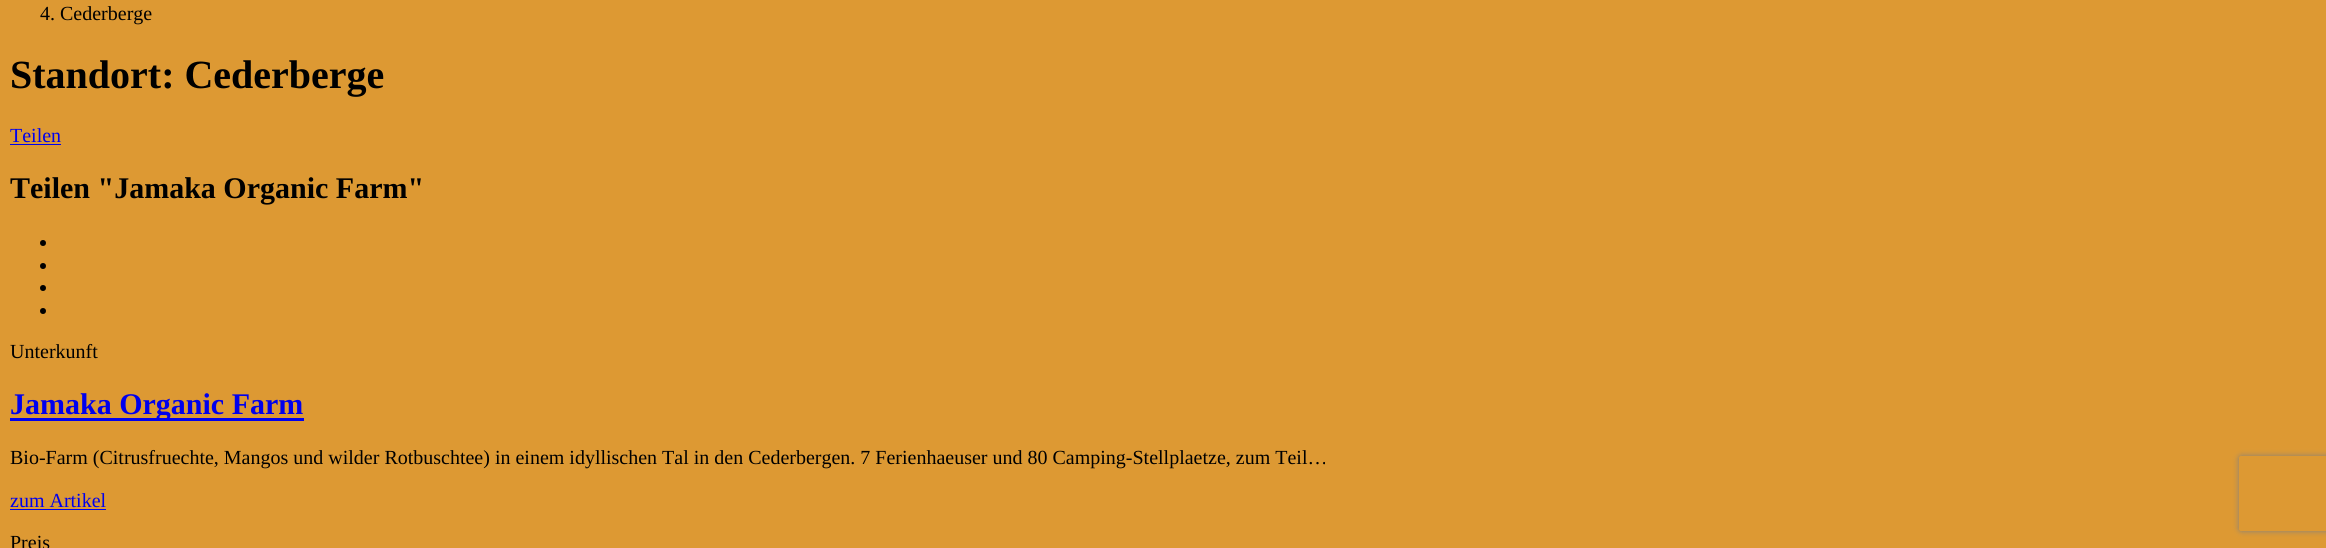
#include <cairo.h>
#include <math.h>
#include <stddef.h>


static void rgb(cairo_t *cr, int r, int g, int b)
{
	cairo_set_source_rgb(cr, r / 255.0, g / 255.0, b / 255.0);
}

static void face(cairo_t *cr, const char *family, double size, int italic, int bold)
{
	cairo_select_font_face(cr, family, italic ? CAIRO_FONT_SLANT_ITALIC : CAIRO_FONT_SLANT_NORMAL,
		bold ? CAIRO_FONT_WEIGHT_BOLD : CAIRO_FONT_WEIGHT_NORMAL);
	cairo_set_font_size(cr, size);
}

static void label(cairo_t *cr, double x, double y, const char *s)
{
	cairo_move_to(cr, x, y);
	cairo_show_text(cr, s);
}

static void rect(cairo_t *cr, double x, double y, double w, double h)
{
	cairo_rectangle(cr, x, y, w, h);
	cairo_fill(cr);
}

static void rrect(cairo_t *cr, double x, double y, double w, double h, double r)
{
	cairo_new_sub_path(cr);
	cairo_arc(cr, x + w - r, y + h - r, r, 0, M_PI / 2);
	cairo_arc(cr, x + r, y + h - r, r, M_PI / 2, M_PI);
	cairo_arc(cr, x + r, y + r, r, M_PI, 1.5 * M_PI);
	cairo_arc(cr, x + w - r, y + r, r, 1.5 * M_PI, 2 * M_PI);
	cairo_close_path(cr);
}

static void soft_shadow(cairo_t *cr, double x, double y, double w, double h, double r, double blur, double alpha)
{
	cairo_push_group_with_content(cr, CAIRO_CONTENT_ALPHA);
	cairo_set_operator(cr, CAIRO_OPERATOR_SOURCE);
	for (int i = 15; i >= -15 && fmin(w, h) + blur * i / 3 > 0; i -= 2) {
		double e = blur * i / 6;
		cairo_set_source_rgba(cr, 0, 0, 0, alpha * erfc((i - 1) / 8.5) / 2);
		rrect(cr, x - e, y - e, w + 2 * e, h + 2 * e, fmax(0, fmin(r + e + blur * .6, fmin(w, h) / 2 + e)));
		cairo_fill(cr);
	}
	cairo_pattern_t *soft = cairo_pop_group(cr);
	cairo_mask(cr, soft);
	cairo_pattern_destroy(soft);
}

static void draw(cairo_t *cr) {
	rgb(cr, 221, 153, 51);
	cairo_paint(cr);
	face(cr, "Liberation Serif", 20, 0, 0);
	rgb(cr, 0, 0, 0);
	label(cr, 40, 20, "4. Cederberge");
	face(cr, "Liberation Serif", 40, 0, 1);
	label(cr, 10, 88, "Standort: Cederberge");
	face(cr, "Liberation Serif", 20, 0, 0);
	rgb(cr, 0, 0, 238);
	label(cr, 10, 142, "Teilen");
	rect(cr, 10, 144, 51, 1);
	face(cr, "Liberation Serif", 30, 0, 1);
	rgb(cr, 0, 0, 0);
	label(cr, 10, 198, "Teilen \"Jamaka Organic Farm\"");
	cairo_new_path(cr);
	cairo_arc(cr, 43, 243, 3, 0, 2 * M_PI);
	cairo_fill(cr);
	cairo_arc(cr, 43, 266, 3, 0, 2 * M_PI);
	cairo_fill(cr);
	cairo_arc(cr, 43, 288, 3, 0, 2 * M_PI);
	cairo_fill(cr);
	cairo_arc(cr, 43, 311, 3, 0, 2 * M_PI);
	cairo_fill(cr);
	face(cr, "Liberation Serif", 20, 0, 0);
	label(cr, 10, 358, "Unterkunft");
	rgb(cr, 0, 0, 238);
	rect(cr, 10, 418, 294, 3);
	face(cr, "Liberation Serif", 30, 0, 1);
	label(cr, 10, 414, "Jamaka Organic Farm");
	face(cr, "Liberation Serif", 20, 0, 0);
	rgb(cr, 0, 0, 0);
	label(cr, 10, 464, "Bio-Farm (Citrusfruechte, Mangos und wilder Rotbuschtee) in einem idyllischen Tal in den Cederbergen. 7 Ferienhaeuser und 80 Camping-Stellplaetze, zum Teil…");
	rgb(cr, 0, 0, 238);
	label(cr, 10, 507, "zum Artikel");
	rect(cr, 10, 509, 96, 1);
	rgb(cr, 0, 0, 0);
	label(cr, 10, 549, "Preis");
	cairo_save(cr);
	cairo_set_fill_rule(cr, CAIRO_FILL_RULE_EVEN_ODD);
	cairo_new_path(cr);
	cairo_move_to(cr, 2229, 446);
	cairo_line_to(cr, 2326, 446);
	cairo_line_to(cr, 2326, 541);
	cairo_line_to(cr, 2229, 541);
	cairo_close_path(cr);
	cairo_move_to(cr, 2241.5, 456);
	cairo_line_to(cr, 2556.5, 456);
	cairo_curve_to(cr, 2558, 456, 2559, 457, 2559, 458.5);
	cairo_line_to(cr, 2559, 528.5);
	cairo_curve_to(cr, 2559, 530, 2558, 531, 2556.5, 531);
	cairo_line_to(cr, 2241.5, 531);
	cairo_curve_to(cr, 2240, 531, 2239, 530, 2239, 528.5);
	cairo_line_to(cr, 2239, 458.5);
	cairo_curve_to(cr, 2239, 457, 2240, 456, 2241.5, 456);
	cairo_close_path(cr);
	cairo_clip(cr);
	rgb(cr, 128, 128, 128);
	soft_shadow(cr, 2239, 456, 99, 75, 2.5, 3, 1);
	cairo_restore(cr);
}

int main(void) {
	cairo_surface_t *surface = cairo_image_surface_create(CAIRO_FORMAT_RGB24, 2326, 548);
	cairo_t *cr = cairo_create(surface);
	cairo_font_options_t *options = cairo_font_options_create();
	cairo_font_options_set_hint_metrics(options, CAIRO_HINT_METRICS_OFF);
	cairo_font_options_set_hint_style(options, CAIRO_HINT_STYLE_NONE);
	cairo_set_font_options(cr, options);
	cairo_set_miter_limit(cr, 4);
	draw(cr);
	cairo_surface_write_to_png(surface, "render.png");
	cairo_font_options_destroy(options);
	cairo_destroy(cr);
	cairo_surface_destroy(surface);
	return 0;
}
